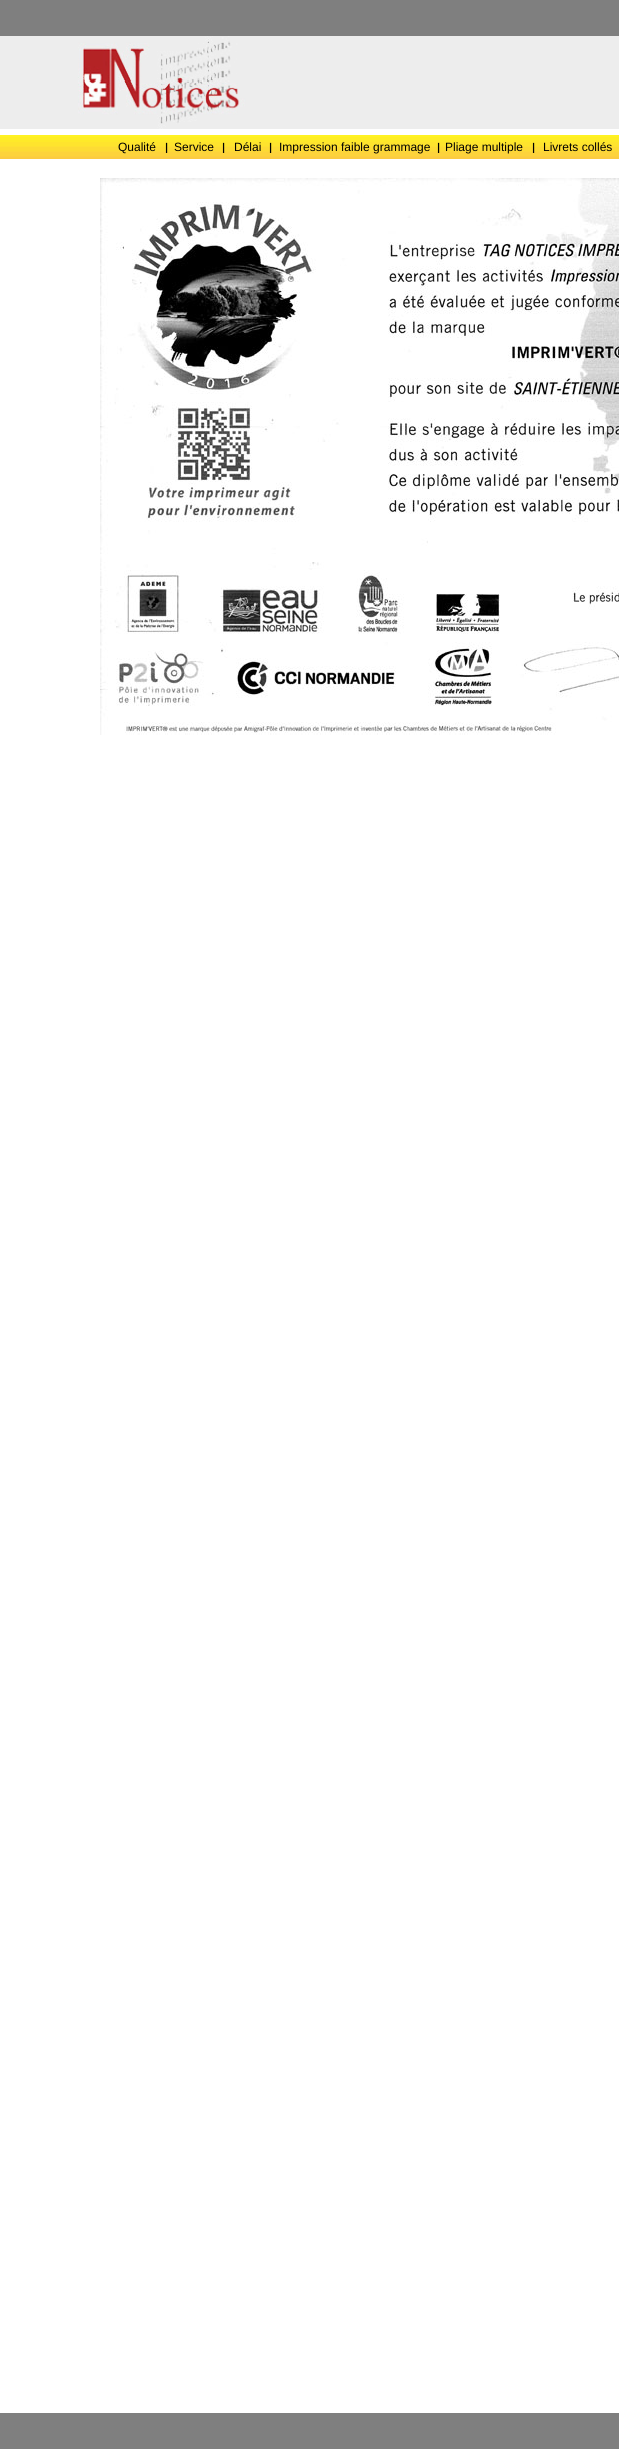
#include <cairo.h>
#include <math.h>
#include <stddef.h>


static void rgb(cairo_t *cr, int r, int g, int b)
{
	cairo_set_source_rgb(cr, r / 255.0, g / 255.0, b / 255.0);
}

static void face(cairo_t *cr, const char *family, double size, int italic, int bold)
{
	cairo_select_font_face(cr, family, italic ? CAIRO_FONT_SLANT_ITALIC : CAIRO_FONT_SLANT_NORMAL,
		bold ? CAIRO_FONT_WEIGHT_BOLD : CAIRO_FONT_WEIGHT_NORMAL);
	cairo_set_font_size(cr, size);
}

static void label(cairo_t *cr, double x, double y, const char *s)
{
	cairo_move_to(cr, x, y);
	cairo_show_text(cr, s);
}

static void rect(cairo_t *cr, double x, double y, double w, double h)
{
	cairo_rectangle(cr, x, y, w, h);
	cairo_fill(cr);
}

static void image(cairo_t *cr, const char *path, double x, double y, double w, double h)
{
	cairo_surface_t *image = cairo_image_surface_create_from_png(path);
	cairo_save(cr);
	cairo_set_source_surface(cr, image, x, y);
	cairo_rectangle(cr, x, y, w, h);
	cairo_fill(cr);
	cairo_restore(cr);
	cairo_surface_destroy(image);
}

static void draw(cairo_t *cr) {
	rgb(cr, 127, 127, 127);
	cairo_paint(cr);
	rgb(cr, 255, 255, 255);
	rect(cr, 0, 129, 619, 2284);
	image(cr, "image0.png", 0, 36, 619, 93);
	image(cr, "image1.png", 0, 135, 619, 24);
	face(cr, "Liberation Sans", 12, 0, 0);
	rgb(cr, 0, 0, 0);
	label(cr, 118, 151, "Qualité");
	face(cr, "Liberation Sans", 14, 0, 0);
	label(cr, 165, 153, "l");
	face(cr, "Liberation Sans", 12, 0, 0);
	label(cr, 174, 151, "Service");
	face(cr, "Liberation Sans", 14, 0, 0);
	label(cr, 222, 153, "l");
	face(cr, "Liberation Sans", 12, 0, 0);
	label(cr, 234, 151, "Délai");
	face(cr, "Liberation Sans", 14, 0, 0);
	label(cr, 269, 153, "l");
	face(cr, "Liberation Sans", 12, 0, 0);
	label(cr, 279, 151, "Impression faible grammage");
	face(cr, "Liberation Sans", 14, 0, 0);
	label(cr, 437, 153, "l");
	face(cr, "Liberation Sans", 12, 0, 0);
	label(cr, 445, 151, "Pliage multiple");
	face(cr, "Liberation Sans", 14, 0, 0);
	label(cr, 532, 153, "l");
	face(cr, "Liberation Sans", 12, 0, 0);
	label(cr, 543, 151, "Livrets collés");
	image(cr, "image2.png", 100, 178, 519, 557);
}

int main(void) {
	cairo_surface_t *surface = cairo_image_surface_create(CAIRO_FORMAT_RGB24, 619, 2449);
	cairo_t *cr = cairo_create(surface);
	cairo_font_options_t *options = cairo_font_options_create();
	cairo_font_options_set_hint_metrics(options, CAIRO_HINT_METRICS_OFF);
	cairo_font_options_set_hint_style(options, CAIRO_HINT_STYLE_NONE);
	cairo_set_font_options(cr, options);
	cairo_set_miter_limit(cr, 4);
	draw(cr);
	cairo_surface_write_to_png(surface, "render.png");
	cairo_font_options_destroy(options);
	cairo_destroy(cr);
	cairo_surface_destroy(surface);
	return 0;
}
